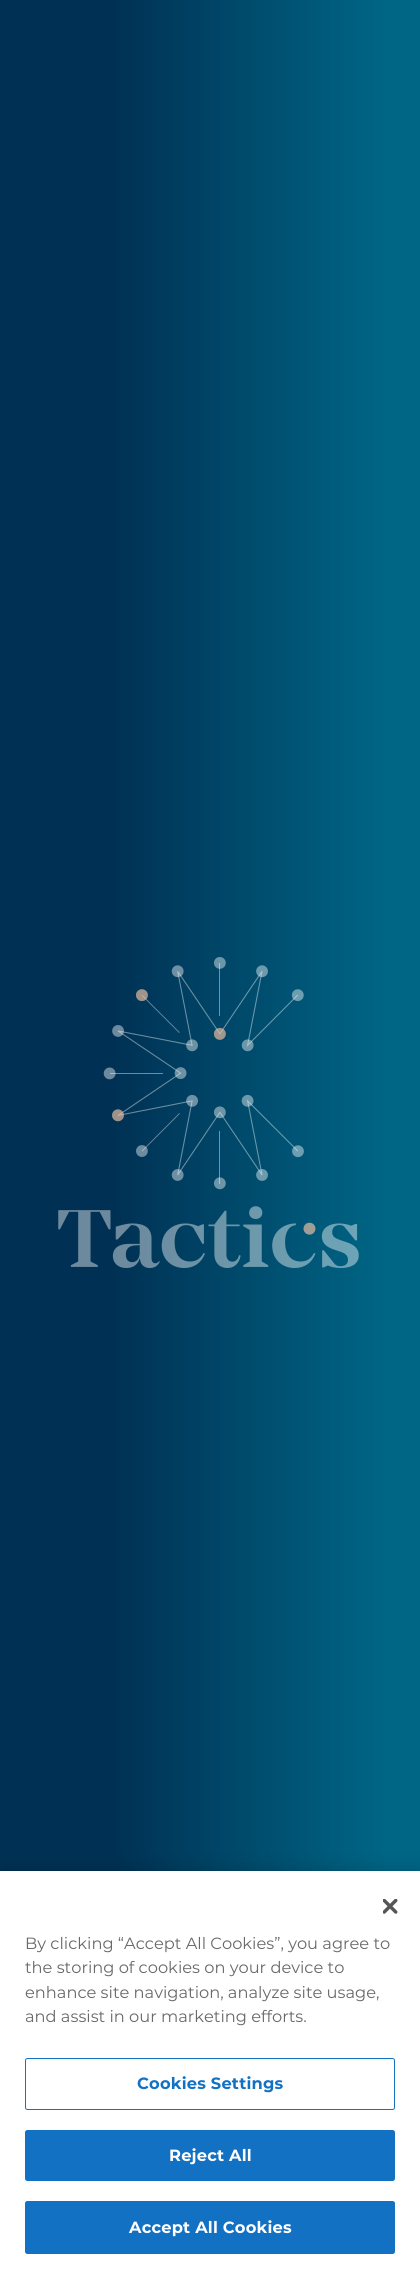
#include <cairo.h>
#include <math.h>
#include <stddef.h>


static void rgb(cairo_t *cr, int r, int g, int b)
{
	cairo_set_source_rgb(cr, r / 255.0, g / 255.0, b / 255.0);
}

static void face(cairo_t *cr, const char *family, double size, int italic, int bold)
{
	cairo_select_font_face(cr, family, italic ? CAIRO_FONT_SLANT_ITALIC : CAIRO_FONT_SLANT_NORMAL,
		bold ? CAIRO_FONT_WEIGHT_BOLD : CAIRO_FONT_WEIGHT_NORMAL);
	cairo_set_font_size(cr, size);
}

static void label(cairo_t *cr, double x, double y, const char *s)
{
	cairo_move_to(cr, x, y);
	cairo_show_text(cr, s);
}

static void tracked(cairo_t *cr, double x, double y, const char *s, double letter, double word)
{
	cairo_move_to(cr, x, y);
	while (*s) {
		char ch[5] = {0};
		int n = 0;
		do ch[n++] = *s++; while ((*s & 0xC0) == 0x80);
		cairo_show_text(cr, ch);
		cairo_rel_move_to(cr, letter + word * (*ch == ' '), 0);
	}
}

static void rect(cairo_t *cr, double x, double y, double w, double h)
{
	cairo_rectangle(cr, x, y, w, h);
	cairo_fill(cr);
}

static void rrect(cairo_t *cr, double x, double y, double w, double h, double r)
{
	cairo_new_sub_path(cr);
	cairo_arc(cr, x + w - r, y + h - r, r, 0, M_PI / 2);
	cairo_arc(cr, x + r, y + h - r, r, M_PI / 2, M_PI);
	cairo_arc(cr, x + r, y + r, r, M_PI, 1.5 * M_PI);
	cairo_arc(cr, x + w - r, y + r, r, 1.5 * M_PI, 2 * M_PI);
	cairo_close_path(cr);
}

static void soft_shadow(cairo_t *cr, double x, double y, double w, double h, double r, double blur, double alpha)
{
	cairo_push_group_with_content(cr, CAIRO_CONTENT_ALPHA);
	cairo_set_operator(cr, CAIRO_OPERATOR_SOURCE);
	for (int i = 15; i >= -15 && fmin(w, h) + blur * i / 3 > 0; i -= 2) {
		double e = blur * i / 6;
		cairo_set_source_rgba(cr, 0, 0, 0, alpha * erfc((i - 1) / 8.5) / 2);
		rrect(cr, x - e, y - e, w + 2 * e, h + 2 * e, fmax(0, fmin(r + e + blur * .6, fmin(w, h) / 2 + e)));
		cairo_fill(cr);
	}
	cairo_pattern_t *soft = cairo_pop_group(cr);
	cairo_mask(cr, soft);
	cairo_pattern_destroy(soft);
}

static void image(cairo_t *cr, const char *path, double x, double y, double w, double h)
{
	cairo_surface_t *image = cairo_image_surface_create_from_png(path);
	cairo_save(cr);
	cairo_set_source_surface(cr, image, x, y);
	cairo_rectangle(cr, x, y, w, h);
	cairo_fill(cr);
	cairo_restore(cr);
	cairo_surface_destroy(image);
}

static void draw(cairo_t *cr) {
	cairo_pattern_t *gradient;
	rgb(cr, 255, 255, 255);
	cairo_paint(cr);
	gradient = cairo_pattern_create_linear(0, 1137, 420, 1137);
	cairo_pattern_add_color_stop_rgba(gradient, 0.27, 0, 0.192, 0.329, 1);
	cairo_pattern_add_color_stop_rgba(gradient, 0.92, 0, 0.4, 0.525, 1);
	cairo_set_source(cr, gradient);
	cairo_pattern_destroy(gradient);
	rect(cr, 0, 0, 420, 1871);
	image(cr, "image0.png", 58, 957, 301, 311);
	rgb(cr, 0, 0, 0);
	soft_shadow(cr, 0, 1871, 420, 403, 0, 11, 0.2);
	rgb(cr, 255, 255, 255);
	rect(cr, 0, 1871, 420, 402);
	image(cr, "image1.png", 383, 1899, 15, 15);
	face(cr, "Montserrat", 16.25, 0, 0);
	rgb(cr, 105, 105, 105);
	label(cr, 25, 1949, "By clicking “Accept All Cookies”, you agree to");
	label(cr, 25, 1973, "the storing of cookies on your device to");
	label(cr, 25, 1998, "enhance site navigation, analyze site usage,");
	label(cr, 25, 2022, "and assist in our marketing efforts.");
	rrect(cr, 25.5, 2058.5, 369, 51, 2);
	rgb(cr, 19, 113, 195);
	cairo_set_line_width(cr, 1);
	cairo_stroke(cr);
	face(cr, "Montserrat", 16.25, 0, 1);
	tracked(cr, 137, 2089, "Cookies Settings", 0.2, 0);
	rrect(cr, 25.5, 2130.5, 369, 50, 2);
	cairo_fill_preserve(cr);
	cairo_stroke(cr);
	rgb(cr, 255, 255, 255);
	tracked(cr, 169, 2161, "Reject All", 0.2, 0);
	rgb(cr, 19, 113, 195);
	rrect(cr, 25.5, 2201.5, 369, 52, 2);
	cairo_fill_preserve(cr);
	cairo_stroke(cr);
	rgb(cr, 255, 255, 255);
	tracked(cr, 129, 2233, "Accept All Cookies", 0.2, 0);
}

int main(void) {
	cairo_surface_t *surface = cairo_image_surface_create(CAIRO_FORMAT_RGB24, 420, 2273);
	cairo_t *cr = cairo_create(surface);
	cairo_font_options_t *options = cairo_font_options_create();
	cairo_font_options_set_hint_metrics(options, CAIRO_HINT_METRICS_OFF);
	cairo_font_options_set_hint_style(options, CAIRO_HINT_STYLE_NONE);
	cairo_set_font_options(cr, options);
	cairo_set_miter_limit(cr, 4);
	draw(cr);
	cairo_surface_write_to_png(surface, "render.png");
	cairo_font_options_destroy(options);
	cairo_destroy(cr);
	cairo_surface_destroy(surface);
	return 0;
}
